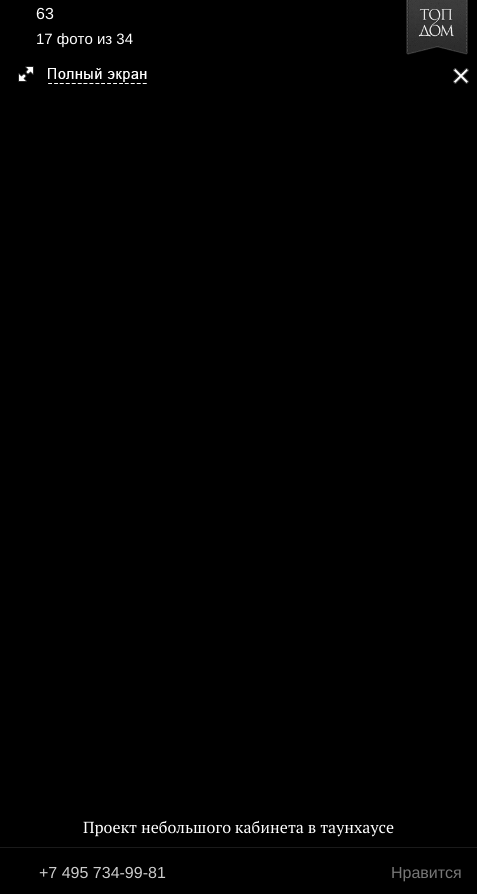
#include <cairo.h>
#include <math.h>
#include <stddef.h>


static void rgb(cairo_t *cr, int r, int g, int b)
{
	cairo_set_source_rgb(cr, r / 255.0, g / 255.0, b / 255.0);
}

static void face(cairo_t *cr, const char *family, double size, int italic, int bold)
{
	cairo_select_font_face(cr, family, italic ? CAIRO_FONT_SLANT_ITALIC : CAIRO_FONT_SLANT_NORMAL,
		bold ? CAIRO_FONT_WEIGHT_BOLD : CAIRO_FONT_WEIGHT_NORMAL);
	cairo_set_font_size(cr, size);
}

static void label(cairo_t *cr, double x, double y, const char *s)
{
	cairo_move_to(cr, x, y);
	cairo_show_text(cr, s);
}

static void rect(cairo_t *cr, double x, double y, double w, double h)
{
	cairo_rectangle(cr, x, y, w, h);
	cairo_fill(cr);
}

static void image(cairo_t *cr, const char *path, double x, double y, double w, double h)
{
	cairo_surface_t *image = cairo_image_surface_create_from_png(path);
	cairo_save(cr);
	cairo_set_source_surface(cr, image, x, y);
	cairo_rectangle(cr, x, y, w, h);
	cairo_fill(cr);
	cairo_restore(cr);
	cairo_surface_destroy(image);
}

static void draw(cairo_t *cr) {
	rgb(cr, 0, 0, 0);
	cairo_paint(cr);
	face(cr, "Liberation Sans", 16, 0, 0);
	rgb(cr, 255, 255, 255);
	label(cr, 36, 19, "63");
	face(cr, "Liberation Sans", 15, 0, 0);
	label(cr, 36, 44, "17 фото из 34");
	image(cr, "image0.png", 406, 0, 62, 55);
	image(cr, "image1.png", 18, 66, 129, 18);
	image(cr, "image2.png", 453, 68, 16, 16);
	face(cr, "PT Serif", 16, 0, 0);
	label(cr, 83, 833, "Проект небольшого кабинета в таунхаусе");
	rgb(cr, 26, 26, 26);
	rect(cr, 0, 847, 477, 1);
	face(cr, "Liberation Sans", 16, 0, 0);
	rgb(cr, 204, 204, 204);
	label(cr, 39, 878, "+7 495 734-99-81");
	rgb(cr, 119, 119, 119);
	label(cr, 391, 878, "Нравится");
}

int main(void) {
	cairo_surface_t *surface = cairo_image_surface_create(CAIRO_FORMAT_RGB24, 477, 894);
	cairo_t *cr = cairo_create(surface);
	cairo_font_options_t *options = cairo_font_options_create();
	cairo_font_options_set_hint_metrics(options, CAIRO_HINT_METRICS_OFF);
	cairo_font_options_set_hint_style(options, CAIRO_HINT_STYLE_NONE);
	cairo_set_font_options(cr, options);
	cairo_set_miter_limit(cr, 4);
	draw(cr);
	cairo_surface_write_to_png(surface, "render.png");
	cairo_font_options_destroy(options);
	cairo_destroy(cr);
	cairo_surface_destroy(surface);
	return 0;
}
